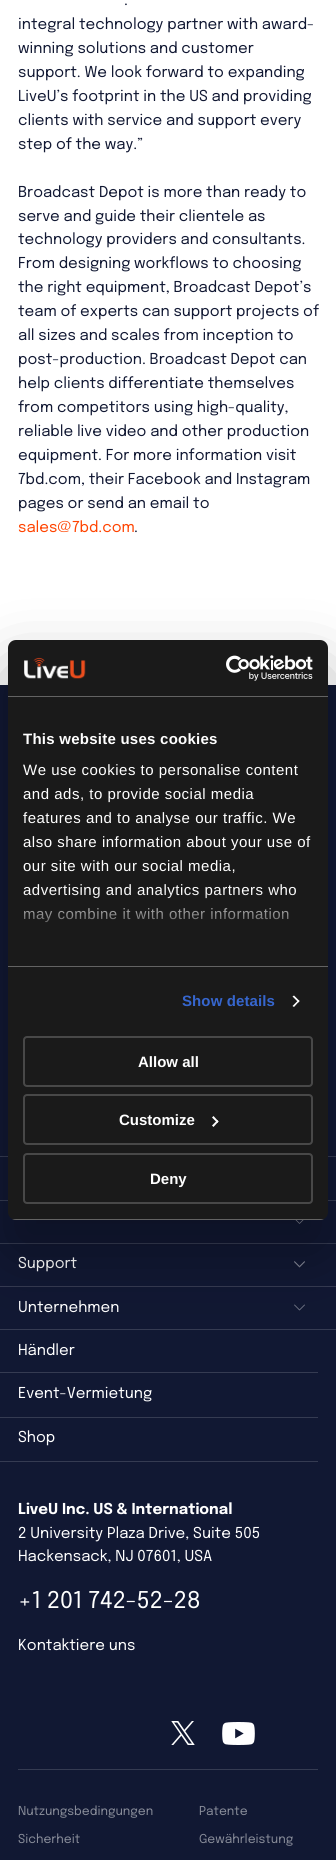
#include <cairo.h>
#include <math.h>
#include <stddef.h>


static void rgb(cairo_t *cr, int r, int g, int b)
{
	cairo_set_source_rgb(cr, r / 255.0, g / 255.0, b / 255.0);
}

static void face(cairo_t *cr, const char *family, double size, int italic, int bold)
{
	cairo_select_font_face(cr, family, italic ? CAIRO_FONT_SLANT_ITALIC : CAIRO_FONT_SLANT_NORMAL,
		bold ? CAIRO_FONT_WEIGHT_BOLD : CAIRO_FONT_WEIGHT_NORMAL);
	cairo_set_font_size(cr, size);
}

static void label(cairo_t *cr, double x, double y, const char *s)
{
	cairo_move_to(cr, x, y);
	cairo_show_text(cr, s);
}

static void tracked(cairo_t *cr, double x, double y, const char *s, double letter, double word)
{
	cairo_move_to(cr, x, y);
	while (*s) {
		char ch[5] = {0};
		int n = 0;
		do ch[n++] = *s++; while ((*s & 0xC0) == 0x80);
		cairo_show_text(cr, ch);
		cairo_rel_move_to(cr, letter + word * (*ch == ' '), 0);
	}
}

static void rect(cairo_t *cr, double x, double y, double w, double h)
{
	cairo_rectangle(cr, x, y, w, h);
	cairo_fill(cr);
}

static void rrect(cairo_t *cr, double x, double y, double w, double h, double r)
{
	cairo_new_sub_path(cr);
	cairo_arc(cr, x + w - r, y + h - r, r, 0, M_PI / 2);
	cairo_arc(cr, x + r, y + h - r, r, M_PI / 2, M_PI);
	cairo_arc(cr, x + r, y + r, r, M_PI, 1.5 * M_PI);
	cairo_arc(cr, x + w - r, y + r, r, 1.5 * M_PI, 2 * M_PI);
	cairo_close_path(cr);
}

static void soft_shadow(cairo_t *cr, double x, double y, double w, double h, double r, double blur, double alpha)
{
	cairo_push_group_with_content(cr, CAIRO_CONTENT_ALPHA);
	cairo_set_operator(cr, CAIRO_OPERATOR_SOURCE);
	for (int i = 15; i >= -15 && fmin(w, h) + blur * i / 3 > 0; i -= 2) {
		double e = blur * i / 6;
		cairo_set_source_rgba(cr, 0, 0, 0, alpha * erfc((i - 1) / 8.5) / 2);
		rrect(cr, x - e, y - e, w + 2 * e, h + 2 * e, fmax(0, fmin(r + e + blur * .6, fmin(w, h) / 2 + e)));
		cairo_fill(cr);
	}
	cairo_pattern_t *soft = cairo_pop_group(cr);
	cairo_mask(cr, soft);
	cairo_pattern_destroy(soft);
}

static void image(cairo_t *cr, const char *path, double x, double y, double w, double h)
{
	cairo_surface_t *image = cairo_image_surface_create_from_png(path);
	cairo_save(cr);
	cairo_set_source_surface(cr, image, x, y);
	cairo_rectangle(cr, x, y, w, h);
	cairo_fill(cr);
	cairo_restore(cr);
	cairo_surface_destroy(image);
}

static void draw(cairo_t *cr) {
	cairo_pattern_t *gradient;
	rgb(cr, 255, 255, 255);
	cairo_paint(cr);
	face(cr, "Epilogue", 15, 0, 0);
	rgb(cr, 17, 24, 51);
	label(cr, 124, 5, ".");
	label(cr, 18, 29, "integral technology partner with award-");
	label(cr, 18, 53, "winning solutions and customer");
	label(cr, 18, 77, "support. We look forward to expanding");
	label(cr, 18, 101, "LiveU’s footprint in the US and providing");
	label(cr, 18, 125, "clients with service and support every");
	label(cr, 18, 149, "step of the way.”");
	label(cr, 18, 197, "Broadcast Depot is more than ready to");
	label(cr, 18, 221, "serve and guide their clientele as");
	label(cr, 18, 244, "technology providers and consultants.");
	label(cr, 18, 268, "From designing workflows to choosing");
	label(cr, 18, 292, "the right equipment, Broadcast Depot’s");
	label(cr, 18, 316, "team of experts can support projects of");
	label(cr, 18, 340, "all sizes and scales from inception to");
	label(cr, 18, 364, "post-production. Broadcast Depot can");
	label(cr, 18, 388, "help clients differentiate themselves");
	label(cr, 18, 412, "from competitors using high-quality,");
	label(cr, 18, 436, "reliable live video and other production");
	label(cr, 18, 460, "equipment. For more information visit");
	label(cr, 18, 484, "7bd.com, their Facebook and Instagram");
	label(cr, 18, 508, "pages or send an email to");
	rgb(cr, 255, 67, 0);
	label(cr, 18, 532, "sales@7bd.com");
	rgb(cr, 17, 24, 51);
	label(cr, 134, 532, ".");
	rect(cr, 0, 685, 336, 1175);
	rgb(cr, 53, 59, 82);
	rect(cr, 0, 1156, 336, 1);
	rect(cr, 0, 1200, 336, 1);
	rect(cr, 0, 1243, 336, 1);
	rgb(cr, 136, 140, 153);
	cairo_new_path(cr);
	cairo_move_to(cr, 305, 1218.5);
	cairo_line_to(cr, 299.5, 1224);
	cairo_line_to(cr, 299.5, 1223);
	cairo_line_to(cr, 304.5, 1218);
	cairo_close_path(cr);
	cairo_fill(cr);
	cairo_set_source_rgba(cr, 1, 1, 1, 0.5);
	cairo_new_path(cr);
	cairo_move_to(cr, 299.5, 1224);
	cairo_line_to(cr, 294, 1218.5);
	cairo_line_to(cr, 294.5, 1218);
	cairo_line_to(cr, 299.5, 1223);
	cairo_close_path(cr);
	cairo_fill(cr);
	rgb(cr, 53, 59, 82);
	rect(cr, 0, 1286, 336, 1);
	rgb(cr, 255, 255, 255);
	label(cr, 18, 1268, "Support");
	rgb(cr, 136, 140, 153);
	cairo_new_path(cr);
	cairo_move_to(cr, 305, 1262);
	cairo_line_to(cr, 299.5, 1267.5);
	cairo_line_to(cr, 299.5, 1266);
	cairo_line_to(cr, 304.5, 1261);
	cairo_close_path(cr);
	cairo_fill(cr);
	cairo_set_source_rgba(cr, 1, 1, 1, 0.5);
	cairo_new_path(cr);
	cairo_move_to(cr, 299.5, 1267.5);
	cairo_line_to(cr, 294, 1262);
	cairo_line_to(cr, 294.5, 1261);
	cairo_line_to(cr, 299.5, 1266);
	cairo_close_path(cr);
	cairo_fill(cr);
	rgb(cr, 53, 59, 82);
	rect(cr, 0, 1329, 336, 1);
	rgb(cr, 255, 255, 255);
	label(cr, 18, 1312, "Unternehmen");
	rgb(cr, 136, 140, 153);
	cairo_new_path(cr);
	cairo_move_to(cr, 305, 1305);
	cairo_line_to(cr, 299.5, 1310.5);
	cairo_line_to(cr, 299.5, 1309.5);
	cairo_line_to(cr, 304.5, 1304.5);
	cairo_close_path(cr);
	cairo_fill(cr);
	cairo_set_source_rgba(cr, 1, 1, 1, 0.5);
	cairo_new_path(cr);
	cairo_move_to(cr, 299.5, 1310.5);
	cairo_line_to(cr, 294, 1305);
	cairo_line_to(cr, 294.5, 1304.5);
	cairo_line_to(cr, 299.5, 1309.5);
	cairo_close_path(cr);
	cairo_fill(cr);
	rgb(cr, 53, 59, 82);
	rect(cr, 0, 1372, 318, 1);
	rgb(cr, 255, 255, 255);
	label(cr, 18, 1355, "Händler");
	rgb(cr, 53, 59, 82);
	rect(cr, 0, 1417, 318, 1);
	rgb(cr, 255, 255, 255);
	label(cr, 18, 1398, "Event-Vermietung");
	rgb(cr, 53, 59, 82);
	rect(cr, 0, 1461, 318, 1);
	rgb(cr, 255, 255, 255);
	label(cr, 18, 1442, "Shop");
	face(cr, "Epilogue", 15, 0, 1);
	label(cr, 18, 1514, "LiveU Inc. US & International");
	face(cr, "Epilogue", 15, 0, 0);
	label(cr, 18, 1538, "2 University Plaza Drive, Suite 505");
	label(cr, 18, 1561, "Hackensack, NJ 07601, USA");
	face(cr, "Epilogue", 23, 0, 0);
	label(cr, 18, 1608, "+1 201 742-52-28");
	face(cr, "Epilogue", 15, 0, 0);
	label(cr, 18, 1650, "Kontaktiere uns");
	rgb(cr, 53, 59, 82);
	rect(cr, 18, 1769, 300, 1);
	image(cr, "image0.png", 171, 1721, 24, 24);
	image(cr, "image1.png", 222, 1722, 33, 23);
	face(cr, "Epilogue", 12.25, 0, 0);
	rgb(cr, 136, 140, 153);
	label(cr, 18, 1815, "Nutzungsbedingungen");
	label(cr, 18, 1843, "Sicherheit");
	label(cr, 199, 1815, "Patente");
	label(cr, 199, 1843, "Gewährleistung");
	rgb(cr, 0, 0, 0);
	soft_shadow(cr, 8, 672, 320, 580, 8, 34, 0.3);
	rgb(cr, 26, 26, 26);
	rrect(cr, 8, 640, 320, 580, 8);
	cairo_fill(cr);
	rgb(cr, 99, 99, 99);
	rect(cr, 8, 696, 320, 1);
	image(cr, "image2.png", 24, 657, 62, 22);
	image(cr, "image3.png", 226, 655, 87, 26);
	rect(cr, 8, 966, 320, 1);
	face(cr, "Liberation Sans", 15, 0, 1);
	rgb(cr, 255, 255, 255);
	tracked(cr, 23, 744, "This website uses cookies", 0.25, 0);
	face(cr, "Liberation Sans", 15, 0, 0);
	tracked(cr, 23, 775, "We use cookies to personalise content", 0.5, 0);
	tracked(cr, 23, 799, "and ads, to provide social media", 0.5, 0);
	tracked(cr, 23, 823, "features and to analyse our traffic. We", 0.5, 0);
	tracked(cr, 23, 847, "also share information about your use of", 0.5, 0);
	tracked(cr, 23, 871, "our site with our social media,", 0.5, 0);
	tracked(cr, 23, 895, "advertising and analytics partners who", 0.5, 0);
	tracked(cr, 23, 919, "may combine it with other information", 0.5, 0);
	gradient = cairo_pattern_create_linear(162, 966, 162, 891);
	cairo_pattern_add_color_stop_rgba(gradient, 0, 0.102, 0.102, 0.102, 1);
	cairo_pattern_add_color_stop_rgba(gradient, 0.5, 0.102, 0.102, 0.102, 0.8);
	cairo_pattern_add_color_stop_rgba(gradient, 1, 0.102, 0.102, 0.102, 0);
	cairo_set_source(cr, gradient);
	cairo_pattern_destroy(gradient);
	rect(cr, 23, 892, 273, 31);
	face(cr, "Liberation Sans", 15, 0, 1);
	rgb(cr, 54, 102, 206);
	tracked(cr, 182, 1006, "Show details", 0.1, 0);
	rgb(cr, 255, 255, 255);
	cairo_new_path(cr);
	cairo_move_to(cr, 294, 995.5);
	cairo_line_to(cr, 299.5, 1001);
	cairo_line_to(cr, 298.5, 1002.5);
	cairo_line_to(cr, 292.5, 996.5);
	cairo_close_path(cr);
	cairo_fill(cr);
	cairo_new_path(cr);
	cairo_move_to(cr, 298.5, 1000);
	cairo_line_to(cr, 299.5, 1001);
	cairo_line_to(cr, 294, 1007);
	cairo_line_to(cr, 292.5, 1006);
	cairo_close_path(cr);
	cairo_fill(cr);
	cairo_save(cr);
	rrect(cr, 8, 640, 320, 580, 8);
	cairo_clip(cr);
	rgb(cr, 99, 99, 99);
	rect(cr, 8, 1219, 320, 1);
	cairo_restore(cr);
	rrect(cr, 24, 1037, 288, 49, 3);
	rgb(cr, 72, 72, 72);
	cairo_stroke(cr);
	rgb(cr, 255, 255, 255);
	label(cr, 138, 1067, "Allow all");
	rrect(cr, 24, 1095, 288, 49, 3);
	rgb(cr, 72, 72, 72);
	cairo_stroke(cr);
	rgb(cr, 255, 255, 255);
	label(cr, 119, 1125, "Customize");
	cairo_new_path(cr);
	cairo_move_to(cr, 213.5, 1116);
	cairo_line_to(cr, 218.5, 1121.5);
	cairo_line_to(cr, 217.5, 1123);
	cairo_line_to(cr, 212, 1117.5);
	cairo_close_path(cr);
	cairo_fill(cr);
	cairo_new_path(cr);
	cairo_move_to(cr, 217.5, 1120);
	cairo_line_to(cr, 218.5, 1121.5);
	cairo_line_to(cr, 213.5, 1127);
	cairo_line_to(cr, 212, 1125.5);
	cairo_close_path(cr);
	cairo_fill(cr);
	rrect(cr, 24, 1154, 288, 49, 3);
	rgb(cr, 72, 72, 72);
	cairo_stroke(cr);
	rgb(cr, 255, 255, 255);
	label(cr, 150, 1184, "Deny");
}

int main(void) {
	cairo_surface_t *surface = cairo_image_surface_create(CAIRO_FORMAT_RGB24, 336, 1860);
	cairo_t *cr = cairo_create(surface);
	cairo_font_options_t *options = cairo_font_options_create();
	cairo_font_options_set_hint_metrics(options, CAIRO_HINT_METRICS_OFF);
	cairo_font_options_set_hint_style(options, CAIRO_HINT_STYLE_NONE);
	cairo_set_font_options(cr, options);
	cairo_set_miter_limit(cr, 4);
	draw(cr);
	cairo_surface_write_to_png(surface, "render.png");
	cairo_font_options_destroy(options);
	cairo_destroy(cr);
	cairo_surface_destroy(surface);
	return 0;
}
